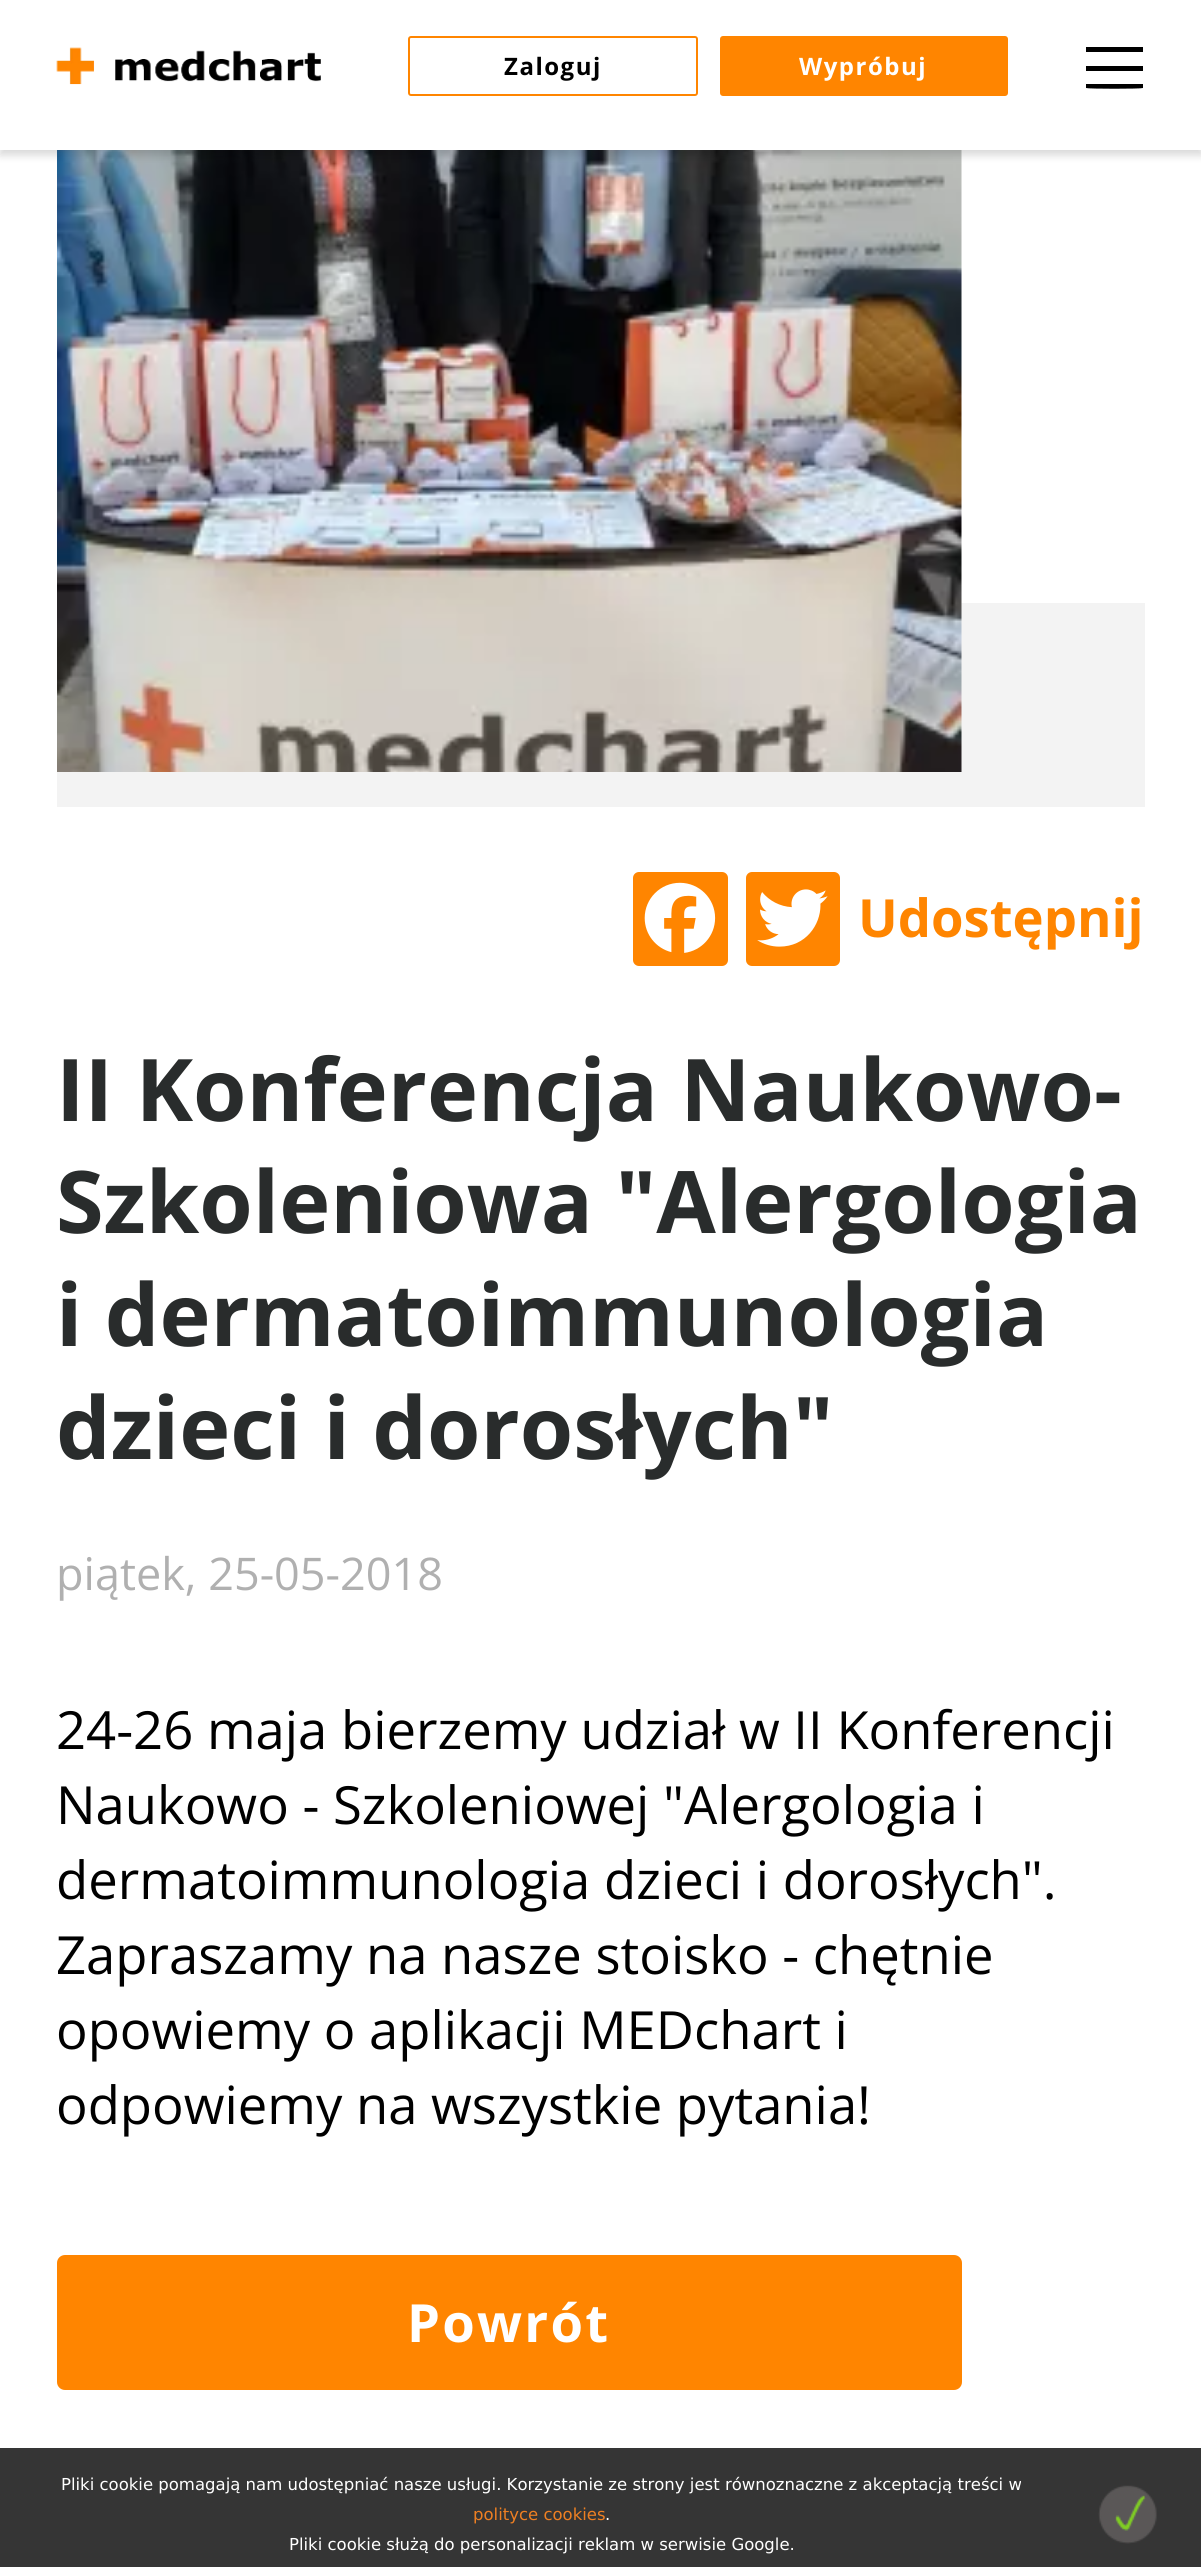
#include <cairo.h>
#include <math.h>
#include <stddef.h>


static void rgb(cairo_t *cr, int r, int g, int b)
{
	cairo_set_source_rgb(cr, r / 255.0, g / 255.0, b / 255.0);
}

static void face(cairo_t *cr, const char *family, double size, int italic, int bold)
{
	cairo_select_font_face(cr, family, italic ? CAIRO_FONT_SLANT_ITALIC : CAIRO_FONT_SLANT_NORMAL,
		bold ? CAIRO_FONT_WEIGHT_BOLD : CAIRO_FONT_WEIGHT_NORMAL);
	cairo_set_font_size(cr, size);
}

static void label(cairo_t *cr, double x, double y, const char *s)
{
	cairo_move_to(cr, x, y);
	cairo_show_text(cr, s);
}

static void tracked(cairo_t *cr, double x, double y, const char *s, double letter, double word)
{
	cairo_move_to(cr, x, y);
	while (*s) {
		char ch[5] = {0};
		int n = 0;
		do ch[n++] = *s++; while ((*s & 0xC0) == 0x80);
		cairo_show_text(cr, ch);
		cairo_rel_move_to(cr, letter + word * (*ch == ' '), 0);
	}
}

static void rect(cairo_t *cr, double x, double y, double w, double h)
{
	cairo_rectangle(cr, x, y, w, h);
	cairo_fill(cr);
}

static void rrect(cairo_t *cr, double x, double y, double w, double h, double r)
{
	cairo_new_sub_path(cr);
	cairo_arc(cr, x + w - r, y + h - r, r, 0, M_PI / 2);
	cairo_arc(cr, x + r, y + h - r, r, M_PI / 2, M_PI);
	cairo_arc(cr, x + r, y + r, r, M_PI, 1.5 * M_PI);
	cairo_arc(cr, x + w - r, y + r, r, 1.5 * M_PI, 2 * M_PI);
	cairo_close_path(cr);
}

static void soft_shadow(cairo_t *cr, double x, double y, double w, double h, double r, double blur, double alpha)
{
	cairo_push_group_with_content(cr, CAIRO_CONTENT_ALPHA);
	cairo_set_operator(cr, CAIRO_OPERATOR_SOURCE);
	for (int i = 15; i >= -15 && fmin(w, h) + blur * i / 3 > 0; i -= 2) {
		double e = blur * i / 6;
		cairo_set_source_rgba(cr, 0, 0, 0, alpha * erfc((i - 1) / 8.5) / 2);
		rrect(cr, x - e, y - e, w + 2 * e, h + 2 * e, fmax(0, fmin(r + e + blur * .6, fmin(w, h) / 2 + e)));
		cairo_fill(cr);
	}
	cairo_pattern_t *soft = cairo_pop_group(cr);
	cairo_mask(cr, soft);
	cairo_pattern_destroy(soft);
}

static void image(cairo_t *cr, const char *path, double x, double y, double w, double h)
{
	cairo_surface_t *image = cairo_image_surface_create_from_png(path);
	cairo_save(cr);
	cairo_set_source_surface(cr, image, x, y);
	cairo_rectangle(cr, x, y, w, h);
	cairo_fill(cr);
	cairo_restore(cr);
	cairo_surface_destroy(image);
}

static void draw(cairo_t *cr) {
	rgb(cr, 255, 255, 255);
	cairo_paint(cr);
	rgb(cr, 243, 243, 243);
	rect(cr, 57, 603, 1088, 204);
	image(cr, "image1.png", 57, 150, 905, 622);
	rgb(cr, 0, 0, 0);
	soft_shadow(cr, 0, 5, 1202, 150, 0, 4.5, 0.16);
	rgb(cr, 255, 255, 255);
	rect(cr, 0, 0, 1201, 150);
	image(cr, "image0.png", 56, 47, 265, 38);
	rrect(cr, 409, 37, 288, 58, 2);
	rgb(cr, 255, 133, 0);
	cairo_stroke(cr);
	face(cr, "Open Sans", 24, 0, 1);
	rgb(cr, 0, 0, 0);
	tracked(cr, 504, 75, "Zaloguj", 1.5, 0);
	rgb(cr, 255, 133, 0);
	rrect(cr, 721.5, 37.5, 285, 57, 1.5);
	cairo_fill_preserve(cr);
	cairo_set_line_width(cr, 3);
	cairo_stroke(cr);
	rgb(cr, 255, 255, 255);
	tracked(cr, 799, 75, "Wypróbuj", 1.5, 0);
	rgb(cr, 0, 0, 0);
	rect(cr, 1086, 47, 57, 5);
	rect(cr, 1086, 66, 57, 5);
	cairo_new_path(cr);
	cairo_move_to(cr, 1086, 84);
	cairo_line_to(cr, 1143, 84);
	cairo_line_to(cr, 1143, 88);
	cairo_curve_to(cr, 1141, 89, 1088, 89, 1086, 88);
	cairo_close_path(cr);
	cairo_fill(cr);
	rgb(cr, 255, 133, 0);
	rrect(cr, 633, 872, 95, 94, 6);
	cairo_fill(cr);
	image(cr, "image2.png", 644, 882, 72, 71);
	rrect(cr, 746, 872, 94, 94, 6);
	cairo_fill(cr);
	image(cr, "image3.png", 757, 889, 71, 58);
	face(cr, "Open Sans", 52.6, 0, 1);
	label(cr, 858, 937, "Udostępnij");
	face(cr, "Open Sans", 86.4, 0, 1);
	rgb(cr, 41, 44, 44);
	label(cr, 56, 1121, "II Konferencja Naukowo-");
	label(cr, 56, 1233, "Szkoleniowa \"Alergologia");
	label(cr, 56, 1346, "i dermatoimmunologia");
	label(cr, 56, 1459, "dzieci i dorosłych\"");
	face(cr, "Open Sans", 45, 0, 0);
	rgb(cr, 176, 176, 176);
	label(cr, 56, 1590, "piątek, 25-05-2018");
	face(cr, "Open Sans", 52.6, 0, 0);
	rgb(cr, 0, 0, 0);
	label(cr, 56, 1749, "24-26 maja bierzemy udział w II Konferencji");
	label(cr, 56, 1824, "Naukowo - Szkoleniowej \"Alergologia i");
	label(cr, 56, 1899, "dermatoimmunologia dzieci i dorosłych\".");
	label(cr, 56, 1974, "Zapraszamy na nasze stoisko - chętnie");
	label(cr, 56, 2049, "opowiemy o aplikacji MEDchart i");
	label(cr, 56, 2124, "odpowiemy na wszystkie pytania!");
	rgb(cr, 255, 133, 0);
	rrect(cr, 57, 2255, 905, 135, 8);
	cairo_fill(cr);
	face(cr, "Open Sans", 52.6, 0, 1);
	rgb(cr, 255, 255, 255);
	tracked(cr, 407, 2342, "Powrót", 2.25, 0);
	rgb(cr, 53, 53, 53);
	rect(cr, 0, 2448, 1201, 119);
	face(cr, "DejaVu Sans", 16.5, 0, 0);
	rgb(cr, 255, 255, 255);
	label(cr, 61, 2490, "Pliki cookie pomagają nam udostępniać nasze usługi. Korzystanie ze strony jest równoznaczne z akceptacją treści w");
	rgb(cr, 238, 127, 34);
	label(cr, 473, 2520, "polityce cookies");
	rgb(cr, 255, 255, 255);
	label(cr, 605, 2520, ".");
	label(cr, 289, 2550, "Pliki cookie służą do personalizacji reklam w serwisie Google.");
	image(cr, "image4.png", 1098, 2485, 59, 59);
}

int main(void) {
	cairo_surface_t *surface = cairo_image_surface_create(CAIRO_FORMAT_RGB24, 1201, 2567);
	cairo_t *cr = cairo_create(surface);
	cairo_font_options_t *options = cairo_font_options_create();
	cairo_font_options_set_hint_metrics(options, CAIRO_HINT_METRICS_OFF);
	cairo_font_options_set_hint_style(options, CAIRO_HINT_STYLE_NONE);
	cairo_set_font_options(cr, options);
	cairo_set_miter_limit(cr, 4);
	draw(cr);
	cairo_surface_write_to_png(surface, "render.png");
	cairo_font_options_destroy(options);
	cairo_destroy(cr);
	cairo_surface_destroy(surface);
	return 0;
}
